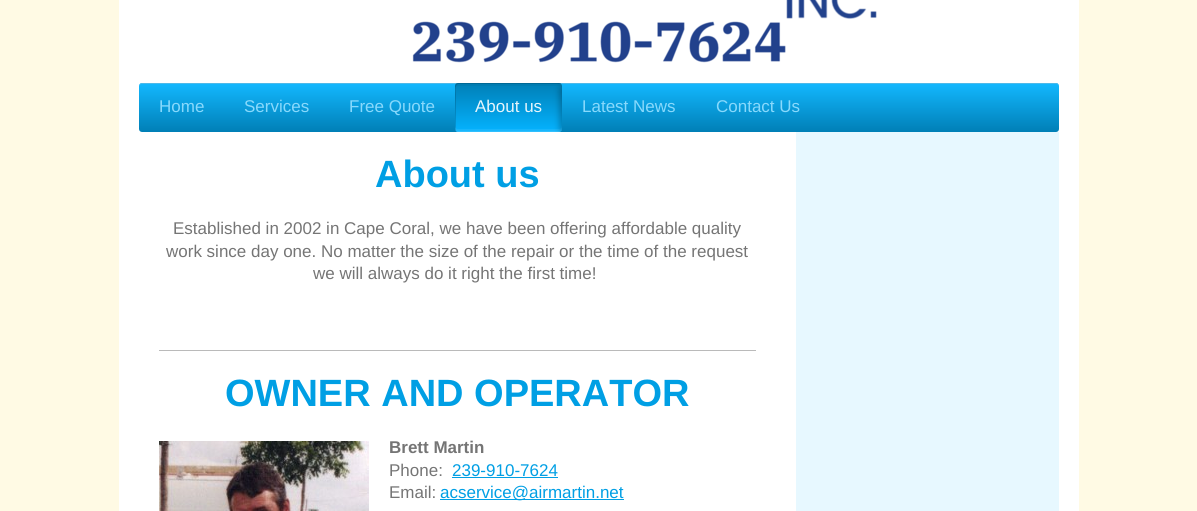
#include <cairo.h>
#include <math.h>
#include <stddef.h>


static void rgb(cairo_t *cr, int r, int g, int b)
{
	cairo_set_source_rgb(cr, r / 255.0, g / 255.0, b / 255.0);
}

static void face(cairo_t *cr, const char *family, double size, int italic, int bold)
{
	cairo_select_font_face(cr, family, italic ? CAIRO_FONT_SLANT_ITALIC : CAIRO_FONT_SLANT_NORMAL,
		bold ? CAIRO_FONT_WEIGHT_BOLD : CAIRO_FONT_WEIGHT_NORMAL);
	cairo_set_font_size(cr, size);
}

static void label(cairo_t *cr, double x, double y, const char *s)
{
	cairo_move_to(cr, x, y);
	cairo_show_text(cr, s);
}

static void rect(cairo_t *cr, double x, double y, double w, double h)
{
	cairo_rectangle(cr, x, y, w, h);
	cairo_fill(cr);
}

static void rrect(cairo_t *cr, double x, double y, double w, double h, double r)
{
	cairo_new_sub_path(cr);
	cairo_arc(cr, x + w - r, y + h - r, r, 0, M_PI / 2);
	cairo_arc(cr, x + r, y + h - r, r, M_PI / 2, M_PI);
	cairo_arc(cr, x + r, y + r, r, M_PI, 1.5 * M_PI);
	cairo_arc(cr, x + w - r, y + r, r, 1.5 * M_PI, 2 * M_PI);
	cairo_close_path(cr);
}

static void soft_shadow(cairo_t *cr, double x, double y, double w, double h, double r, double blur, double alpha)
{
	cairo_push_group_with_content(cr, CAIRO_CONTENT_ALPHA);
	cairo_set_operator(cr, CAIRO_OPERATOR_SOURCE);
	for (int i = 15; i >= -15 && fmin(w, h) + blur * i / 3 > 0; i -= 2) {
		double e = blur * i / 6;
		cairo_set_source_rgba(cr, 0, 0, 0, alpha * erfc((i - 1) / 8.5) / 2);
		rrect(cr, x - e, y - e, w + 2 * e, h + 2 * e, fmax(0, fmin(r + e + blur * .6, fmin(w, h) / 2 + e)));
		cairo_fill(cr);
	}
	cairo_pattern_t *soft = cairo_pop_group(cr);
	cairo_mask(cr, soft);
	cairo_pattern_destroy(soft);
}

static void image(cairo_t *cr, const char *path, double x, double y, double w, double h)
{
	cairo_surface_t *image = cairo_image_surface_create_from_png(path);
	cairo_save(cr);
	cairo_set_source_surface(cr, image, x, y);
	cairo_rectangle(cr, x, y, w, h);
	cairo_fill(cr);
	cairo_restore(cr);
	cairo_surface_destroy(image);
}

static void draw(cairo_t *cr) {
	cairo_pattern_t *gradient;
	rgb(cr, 255, 250, 228);
	cairo_paint(cr);
	rgb(cr, 255, 255, 255);
	rect(cr, 119, 0, 960, 511);
	image(cr, "image0.png", 139, 0, 920, 63);
	gradient = cairo_pattern_create_linear(139, 83, 139, 132);
	cairo_pattern_add_color_stop_rgba(gradient, 0, 0.075, 0.722, 1, 1);
	cairo_pattern_add_color_stop_rgba(gradient, 1, 0, 0.498, 0.714, 1);
	cairo_set_source(cr, gradient);
	cairo_pattern_destroy(gradient);
	rrect(cr, 139, 83, 920, 49, 3);
	cairo_fill(cr);
	rgb(cr, 77, 185, 233);
	cairo_new_path(cr);
	cairo_move_to(cr, 142, 84);
	cairo_line_to(cr, 1056, 84);
	cairo_curve_to(cr, 1058, 84, 1059, 85, 1059, 87);
	cairo_curve_to(cr, 1059, 85, 1058, 83, 1056, 83);
	cairo_line_to(cr, 142, 83);
	cairo_curve_to(cr, 140, 83, 139, 85, 139, 87);
	cairo_curve_to(cr, 139, 85, 140, 84, 142, 84);
	cairo_close_path(cr);
	cairo_fill(cr);
	face(cr, "Liberation Sans", 17, 0, 0);
	rgb(cr, 136, 217, 252);
	label(cr, 159, 112, "Home");
	label(cr, 244, 112, "Services");
	label(cr, 349, 112, "Free Quote");
	gradient = cairo_pattern_create_linear(455, 132, 455, 83);
	cairo_pattern_add_color_stop_rgba(gradient, 0, 0.016, 0.702, 1, 1);
	cairo_pattern_add_color_stop_rgba(gradient, 1, 0, 0.498, 0.714, 1);
	cairo_set_source(cr, gradient);
	cairo_pattern_destroy(gradient);
	rrect(cr, 455, 83, 107, 49, 3);
	cairo_fill(cr);
	cairo_set_source_rgba(cr, 0, 0, 0, 0.15);
	cairo_new_path(cr);
	cairo_move_to(cr, 459, 84);
	cairo_line_to(cr, 561, 84);
	cairo_curve_to(cr, 561, 83, 560, 83, 559, 83);
	cairo_line_to(cr, 458, 83);
	cairo_curve_to(cr, 456, 83, 455, 84, 455, 86);
	cairo_line_to(cr, 455, 129);
	cairo_curve_to(cr, 455, 130, 455, 131, 456, 131);
	cairo_line_to(cr, 456, 94);
	cairo_curve_to(cr, 456, 92, 454, 84, 459, 84);
	cairo_close_path(cr);
	cairo_fill(cr);
	cairo_set_source_rgba(cr, 0, 0, 0, 0.04);
	cairo_new_path(cr);
	cairo_move_to(cr, 458, 86);
	cairo_line_to(cr, 559, 86);
	cairo_curve_to(cr, 561, 86, 562, 87, 562, 89);
	cairo_line_to(cr, 562, 86);
	cairo_curve_to(cr, 562, 84, 561, 83, 559, 83);
	cairo_line_to(cr, 458, 83);
	cairo_curve_to(cr, 456, 83, 455, 84, 455, 86);
	cairo_line_to(cr, 455, 89);
	cairo_curve_to(cr, 455, 87, 456, 86, 458, 86);
	cairo_close_path(cr);
	cairo_fill(cr);
	cairo_set_source_rgba(cr, 1, 1, 1, 0.08);
	cairo_new_path(cr);
	cairo_move_to(cr, 455, 126);
	cairo_line_to(cr, 455, 129);
	cairo_curve_to(cr, 455, 131, 456, 132, 458, 132);
	cairo_line_to(cr, 559, 132);
	cairo_curve_to(cr, 561, 132, 562, 131, 562, 129);
	cairo_line_to(cr, 562, 126);
	cairo_curve_to(cr, 562, 128, 561, 129, 559, 129);
	cairo_line_to(cr, 458, 129);
	cairo_curve_to(cr, 456, 129, 455, 128, 455, 126);
	cairo_close_path(cr);
	cairo_fill(cr);
	cairo_set_source_rgba(cr, 1, 1, 1, 0.1);
	cairo_new_path(cr);
	cairo_move_to(cr, 455, 128);
	cairo_curve_to(cr, 455, 137, 472, 132, 475, 132);
	cairo_line_to(cr, 542, 132);
	cairo_curve_to(cr, 545, 132, 562, 137, 562, 128);
	cairo_curve_to(cr, 562, 130, 561, 131, 559, 131);
	cairo_line_to(cr, 458, 131);
	cairo_curve_to(cr, 456, 131, 455, 130, 455, 128);
	cairo_close_path(cr);
	cairo_fill(cr);
	rgb(cr, 230, 245, 252);
	label(cr, 475, 112, "About us");
	cairo_save(cr);
	rrect(cr, 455, 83, 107, 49, 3);
	cairo_clip(cr);
	rgb(cr, 0, 0, 0);
	soft_shadow(cr, 560, 85, 16, 49, 8, 3.5, 0.3);
	cairo_restore(cr);
	rgb(cr, 136, 217, 252);
	label(cr, 582, 112, "Latest News");
	label(cr, 716, 112, "Contact Us");
	face(cr, "Liberation Sans", 38, 0, 1);
	rgb(cr, 0, 159, 228);
	label(cr, 375, 187, "About us");
	face(cr, "Liberation Sans", 17, 0, 0);
	rgb(cr, 117, 117, 117);
	label(cr, 173, 234, "Established in 2002 in Cape Coral, we have been offering affordable quality");
	label(cr, 166, 257, "work since day one. No matter the size of the repair or the time of the request");
	label(cr, 313, 279, "we will always do it right the first time!");
	rgb(cr, 186, 186, 186);
	rect(cr, 159, 350, 597, 1);
	face(cr, "Liberation Sans", 38, 0, 1);
	rgb(cr, 0, 159, 228);
	label(cr, 225, 406, "OWNER AND OPERATOR");
	image(cr, "image1.png", 159, 441, 210, 70);
	face(cr, "Liberation Sans", 17, 0, 1);
	rgb(cr, 117, 117, 117);
	label(cr, 389, 453, "Brett Martin");
	face(cr, "Liberation Sans", 17, 0, 0);
	label(cr, 389, 476, "Phone:");
	rgb(cr, 0, 159, 228);
	label(cr, 452, 476, "239-910-7624");
	rect(cr, 452, 477, 106, 1);
	rgb(cr, 117, 117, 117);
	label(cr, 389, 498, "Email:");
	rgb(cr, 0, 159, 228);
	rect(cr, 440, 499, 184, 1);
	label(cr, 440, 498, "acservice@airmartin.net");
	rgb(cr, 231, 248, 255);
	rect(cr, 796, 132, 263, 379);
}

int main(void) {
	cairo_surface_t *surface = cairo_image_surface_create(CAIRO_FORMAT_RGB24, 1197, 511);
	cairo_t *cr = cairo_create(surface);
	cairo_font_options_t *options = cairo_font_options_create();
	cairo_font_options_set_hint_metrics(options, CAIRO_HINT_METRICS_OFF);
	cairo_font_options_set_hint_style(options, CAIRO_HINT_STYLE_NONE);
	cairo_set_font_options(cr, options);
	cairo_set_miter_limit(cr, 4);
	draw(cr);
	cairo_surface_write_to_png(surface, "render.png");
	cairo_font_options_destroy(options);
	cairo_destroy(cr);
	cairo_surface_destroy(surface);
	return 0;
}
